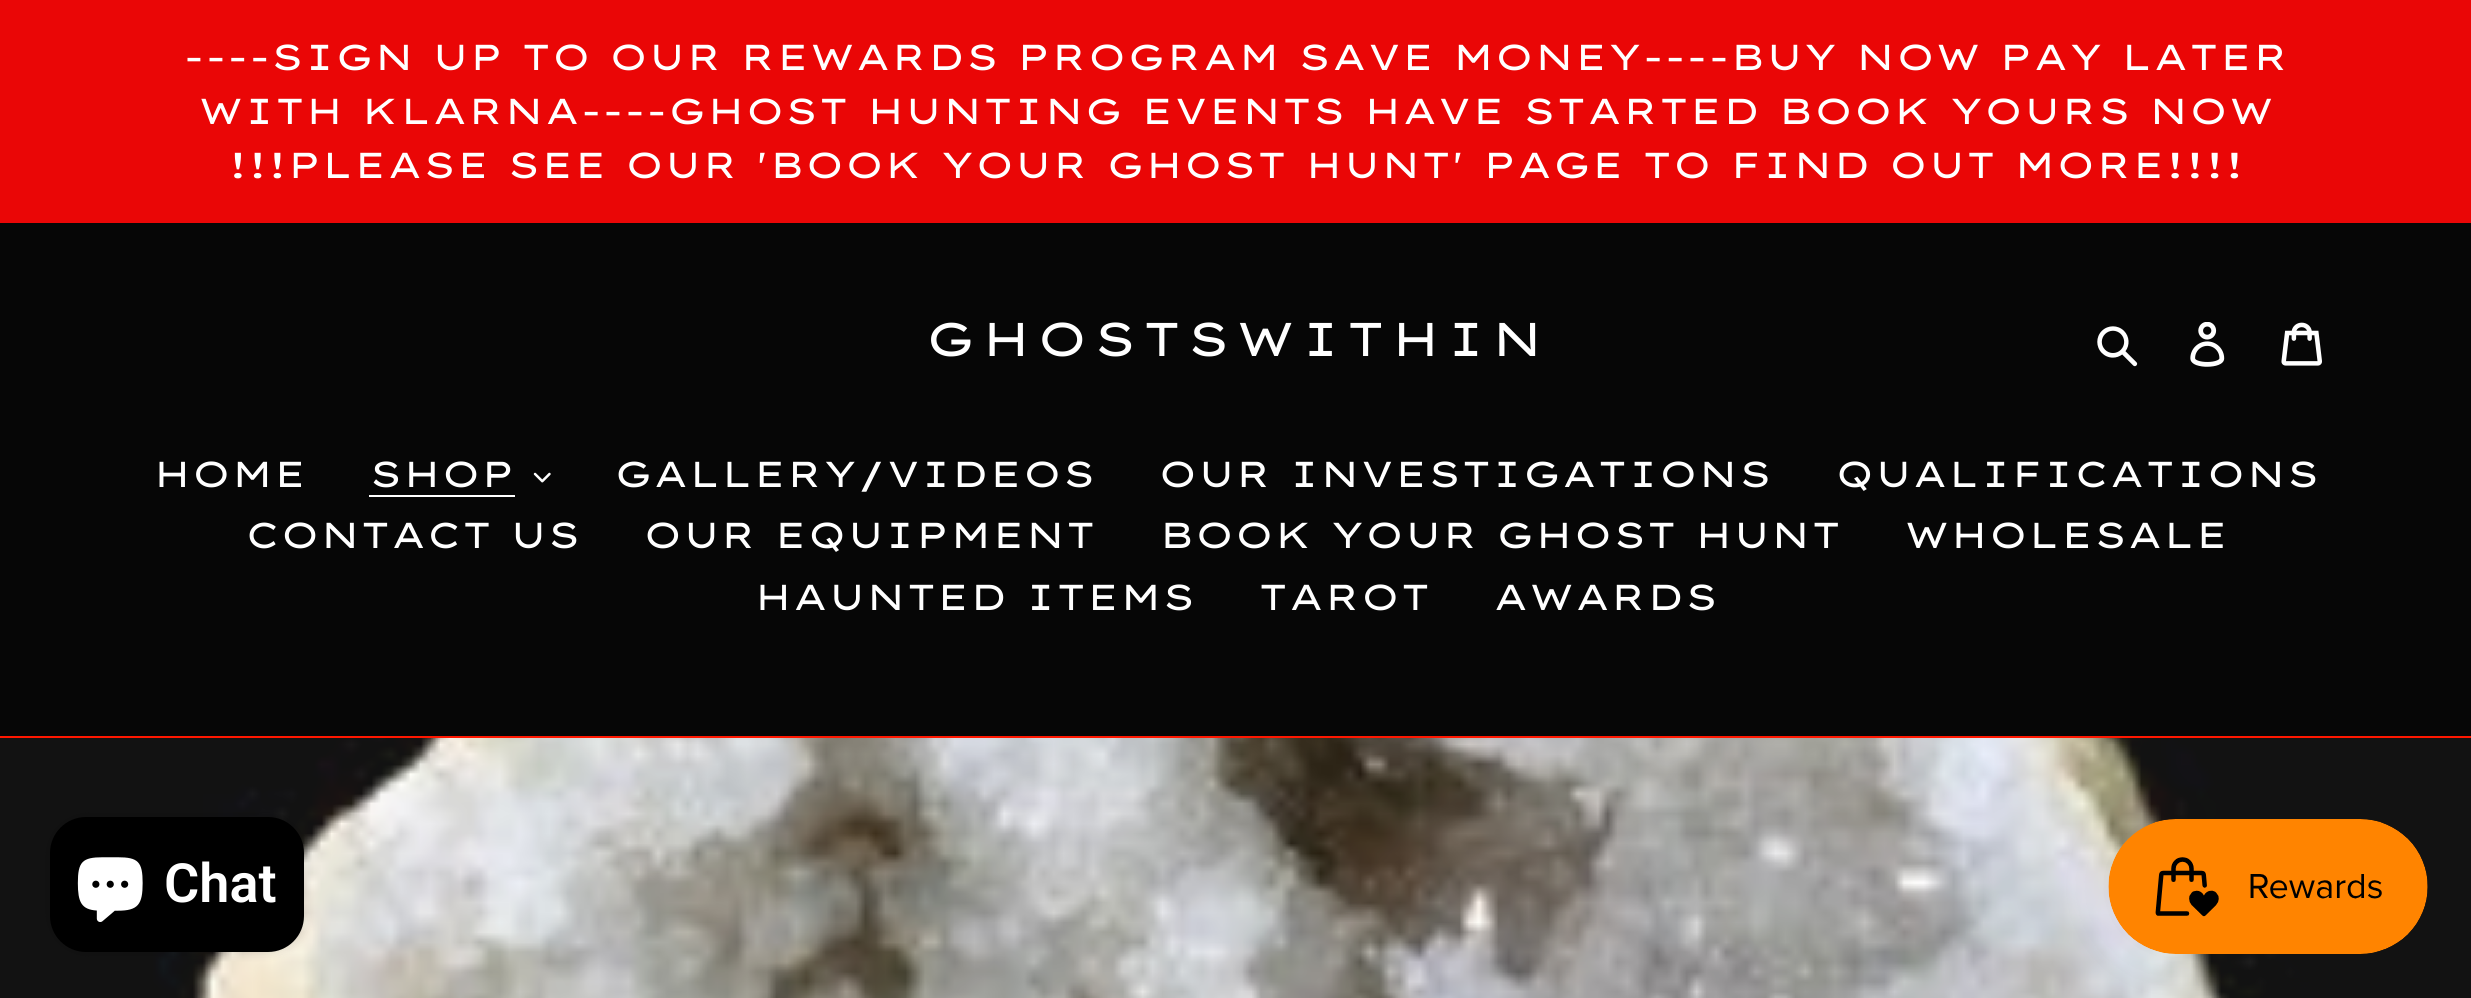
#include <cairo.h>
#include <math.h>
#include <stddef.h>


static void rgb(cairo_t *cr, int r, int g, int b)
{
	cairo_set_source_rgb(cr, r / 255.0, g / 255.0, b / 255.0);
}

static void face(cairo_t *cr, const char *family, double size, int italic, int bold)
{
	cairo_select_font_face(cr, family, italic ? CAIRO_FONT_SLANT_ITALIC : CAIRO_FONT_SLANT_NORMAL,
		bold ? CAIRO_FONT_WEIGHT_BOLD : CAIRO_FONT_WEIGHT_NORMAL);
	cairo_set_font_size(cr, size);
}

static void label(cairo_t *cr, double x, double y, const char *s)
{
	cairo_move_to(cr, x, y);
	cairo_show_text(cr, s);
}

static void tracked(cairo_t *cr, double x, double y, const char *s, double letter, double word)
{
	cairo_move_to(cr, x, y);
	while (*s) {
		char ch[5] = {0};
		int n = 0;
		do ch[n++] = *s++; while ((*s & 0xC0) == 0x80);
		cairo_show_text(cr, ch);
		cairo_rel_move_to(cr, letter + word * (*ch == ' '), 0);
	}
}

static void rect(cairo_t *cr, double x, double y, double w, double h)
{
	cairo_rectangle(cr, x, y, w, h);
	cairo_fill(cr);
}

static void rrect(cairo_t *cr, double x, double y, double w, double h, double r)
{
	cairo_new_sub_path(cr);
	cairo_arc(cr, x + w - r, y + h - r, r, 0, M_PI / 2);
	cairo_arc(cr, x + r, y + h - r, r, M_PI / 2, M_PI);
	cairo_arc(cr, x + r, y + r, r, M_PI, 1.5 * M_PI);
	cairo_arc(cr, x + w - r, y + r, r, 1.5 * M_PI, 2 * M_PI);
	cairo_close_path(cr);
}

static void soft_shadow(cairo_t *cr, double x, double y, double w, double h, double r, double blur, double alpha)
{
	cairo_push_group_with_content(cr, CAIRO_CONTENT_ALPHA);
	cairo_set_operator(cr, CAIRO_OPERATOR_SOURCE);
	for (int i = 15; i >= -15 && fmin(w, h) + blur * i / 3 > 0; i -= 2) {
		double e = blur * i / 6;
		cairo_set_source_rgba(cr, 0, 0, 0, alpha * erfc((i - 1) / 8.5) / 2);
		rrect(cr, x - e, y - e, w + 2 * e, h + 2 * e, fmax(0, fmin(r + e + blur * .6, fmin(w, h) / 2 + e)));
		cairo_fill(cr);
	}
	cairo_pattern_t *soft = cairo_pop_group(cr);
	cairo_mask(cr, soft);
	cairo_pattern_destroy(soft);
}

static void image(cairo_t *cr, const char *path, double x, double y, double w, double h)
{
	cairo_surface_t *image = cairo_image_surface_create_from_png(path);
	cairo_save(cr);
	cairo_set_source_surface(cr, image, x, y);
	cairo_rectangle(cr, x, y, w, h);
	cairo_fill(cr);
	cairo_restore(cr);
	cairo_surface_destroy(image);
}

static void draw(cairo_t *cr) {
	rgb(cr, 6, 6, 6);
	cairo_paint(cr);
	rgb(cr, 234, 6, 6);
	rect(cr, 0, 0, 2471, 223);
	face(cr, "Lexend Zetta", 36, 0, 0);
	rgb(cr, 255, 255, 255);
	label(cr, 183, 70, "----SIGN UP TO OUR REWARDS PROGRAM SAVE MONEY----BUY NOW PAY LATER");
	label(cr, 198, 124, "WITH KLARNA----GHOST HUNTING EVENTS HAVE STARTED BOOK YOURS NOW");
	label(cr, 228, 178, "!!!PLEASE SEE OUR 'BOOK YOUR GHOST HUNT' PAGE TO FIND OUT MORE!!!!");
	face(cr, "Lexend Zetta", 47.25, 0, 0);
	tracked(cr, 925, 356, "GHOSTSWITHIN", 4.75, 0);
	image(cr, "image0.png", 2097, 326, 41, 41);
	image(cr, "image1.png", 2190, 322, 35, 45);
	image(cr, "image2.png", 2281, 322, 41, 44);
	rgb(cr, 255, 23, 0);
	rect(cr, 0, 736, 2471, 2);
	face(cr, "Lexend Zetta", 36, 0, 0);
	rgb(cr, 255, 255, 255);
	label(cr, 153, 487, "HOME");
	label(cr, 369, 487, "SHOP");
	rect(cr, 369, 495, 146, 2);
	image(cr, "image3.png", 533, 472, 18, 11);
	label(cr, 614, 487, "GALLERY/VIDEOS");
	label(cr, 1158, 487, "OUR INVESTIGATIONS");
	label(cr, 1835, 487, "QUALIFICATIONS");
	label(cr, 245, 548, "CONTACT US");
	label(cr, 643, 548, "OUR EQUIPMENT");
	label(cr, 1159, 548, "BOOK YOUR GHOST HUNT");
	label(cr, 1904, 548, "WHOLESALE");
	label(cr, 754, 610, "HAUNTED ITEMS");
	label(cr, 1258, 610, "TAROT");
	label(cr, 1493, 610, "AWARDS");
	image(cr, "image5.png", 0, 738, 2471, 260);
	rgb(cr, 0, 0, 0);
	soft_shadow(cr, 2108, 819, 320, 135, 67.5, 28, 0.05);
	image(cr, "image4.png", 2108, 819, 320, 135);
	soft_shadow(cr, 50, 817, 254, 135, 36, 5.5, 0.15);
	rgb(cr, 0, 0, 0);
	rrect(cr, 50, 817, 254, 135, 36);
	cairo_fill(cr);
	image(cr, "image6.png", 77, 857, 66, 65);
	face(cr, "Roboto SemiBold", 54, 0, 0);
	rgb(cr, 255, 255, 255);
	label(cr, 164, 902, "Chat");
}

int main(void) {
	cairo_surface_t *surface = cairo_image_surface_create(CAIRO_FORMAT_RGB24, 2471, 998);
	cairo_t *cr = cairo_create(surface);
	cairo_font_options_t *options = cairo_font_options_create();
	cairo_font_options_set_hint_metrics(options, CAIRO_HINT_METRICS_OFF);
	cairo_font_options_set_hint_style(options, CAIRO_HINT_STYLE_NONE);
	cairo_set_font_options(cr, options);
	cairo_set_miter_limit(cr, 4);
	draw(cr);
	cairo_surface_write_to_png(surface, "render.png");
	cairo_font_options_destroy(options);
	cairo_destroy(cr);
	cairo_surface_destroy(surface);
	return 0;
}
